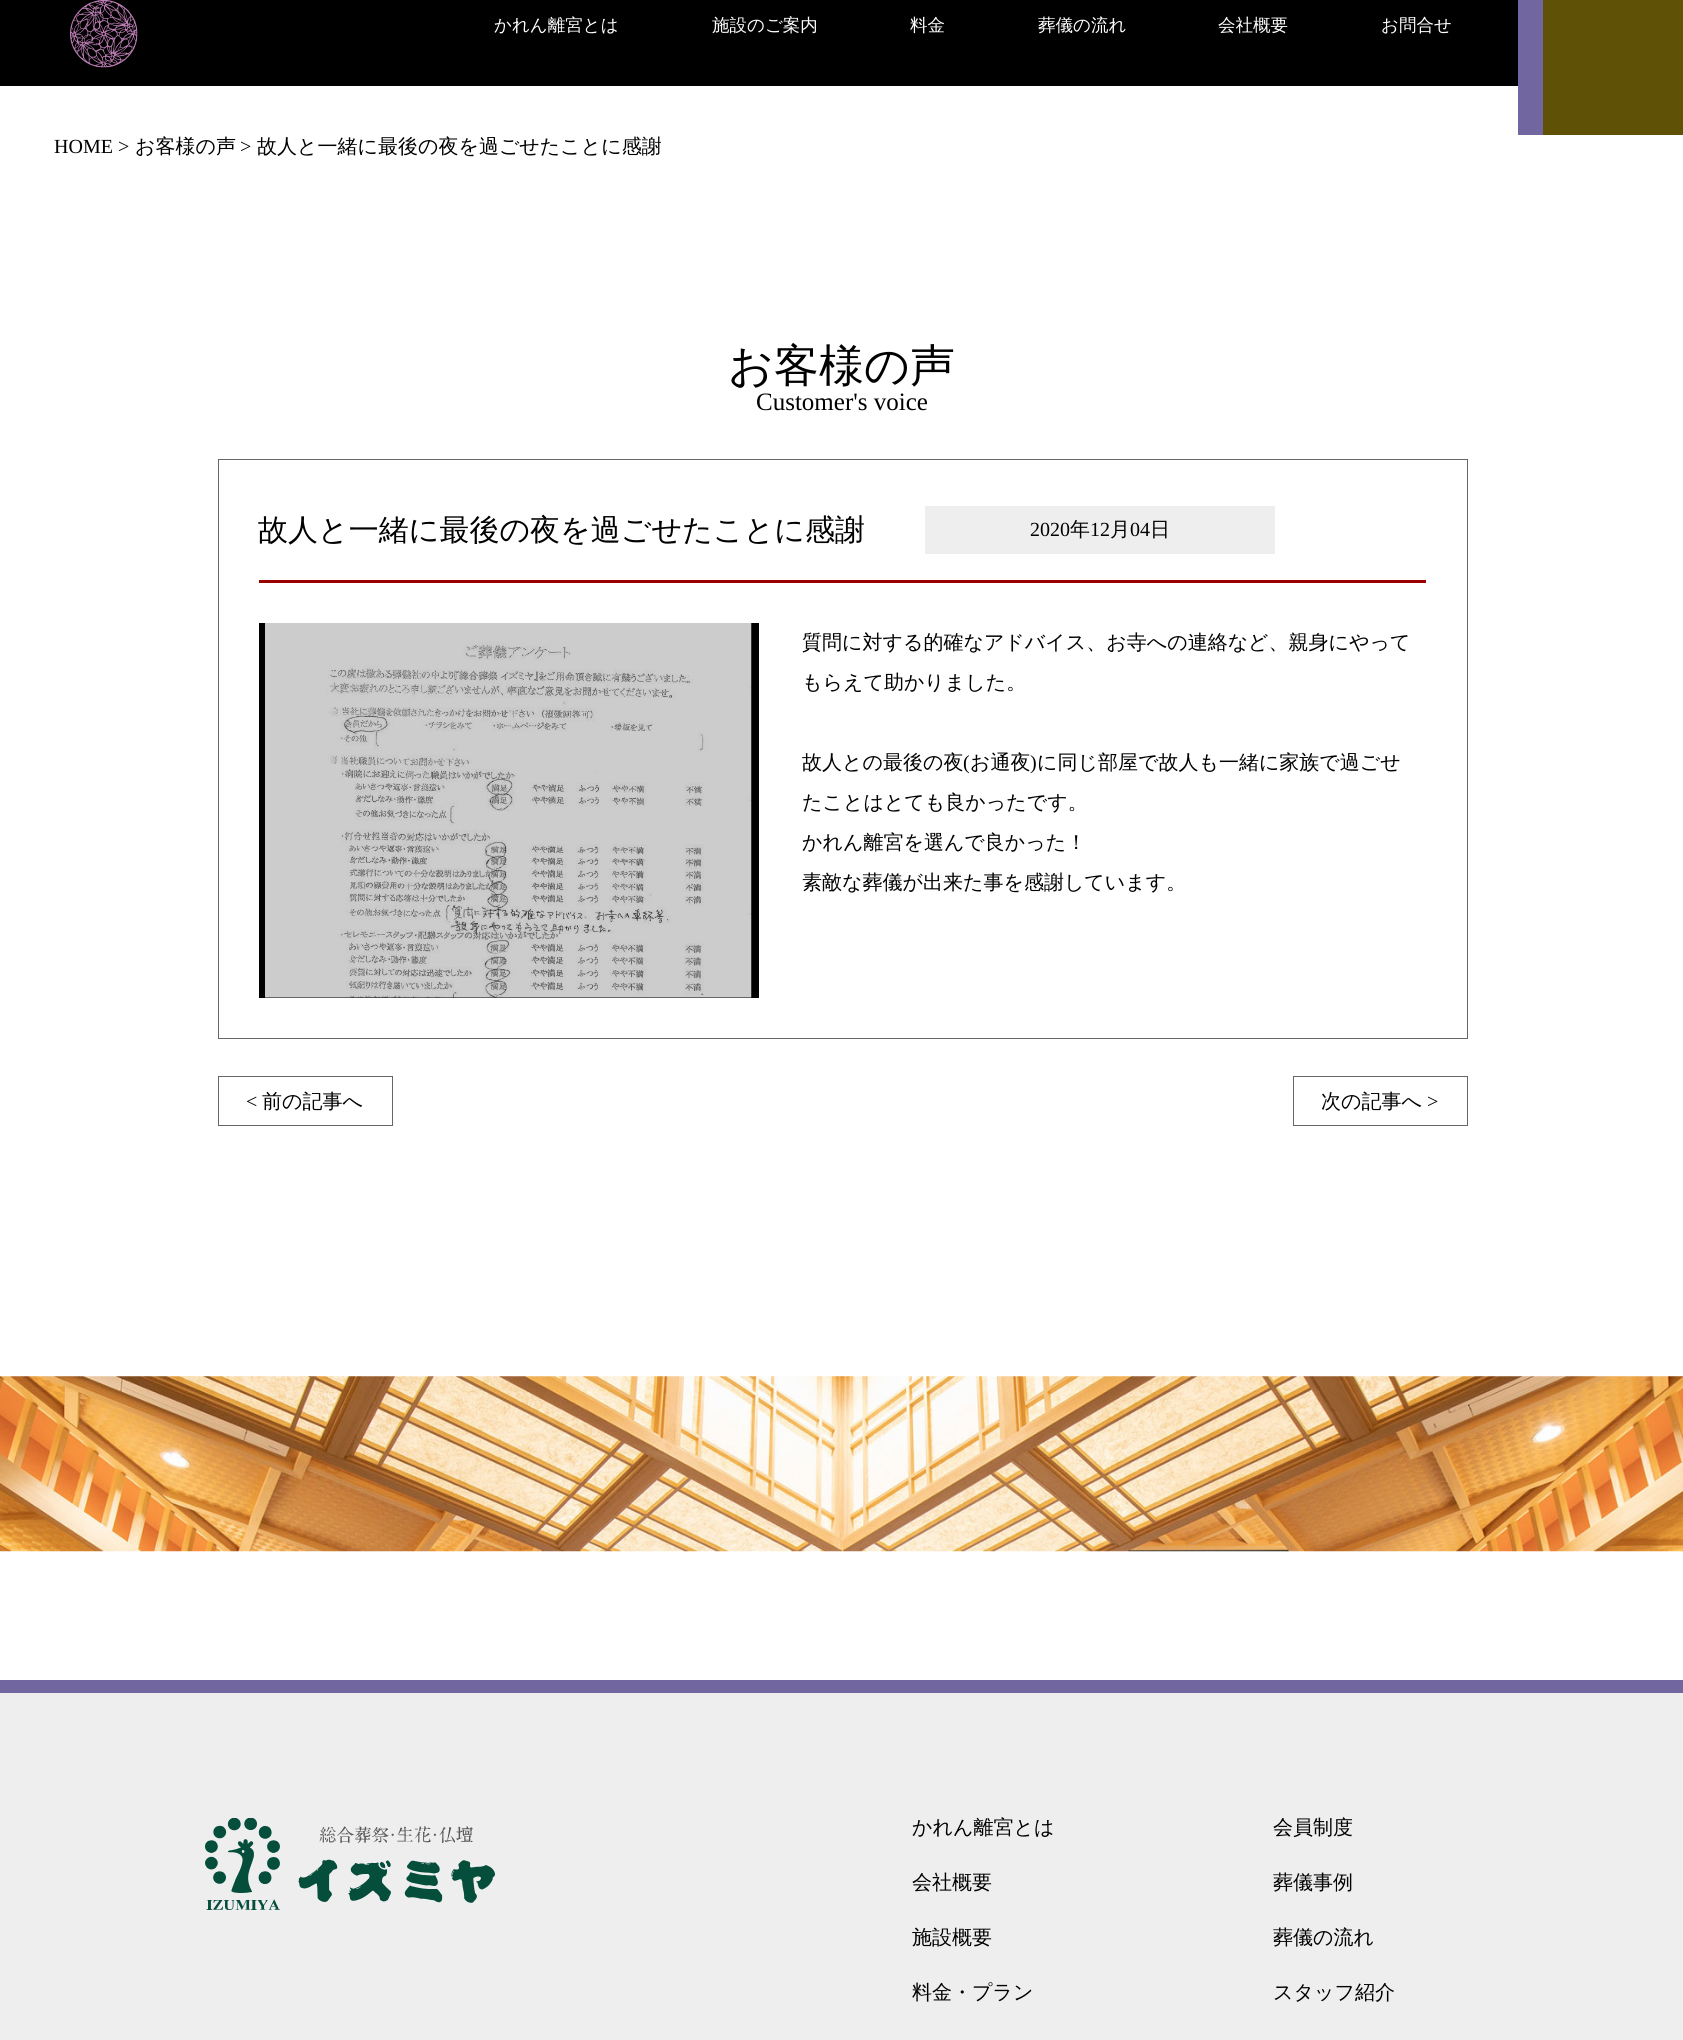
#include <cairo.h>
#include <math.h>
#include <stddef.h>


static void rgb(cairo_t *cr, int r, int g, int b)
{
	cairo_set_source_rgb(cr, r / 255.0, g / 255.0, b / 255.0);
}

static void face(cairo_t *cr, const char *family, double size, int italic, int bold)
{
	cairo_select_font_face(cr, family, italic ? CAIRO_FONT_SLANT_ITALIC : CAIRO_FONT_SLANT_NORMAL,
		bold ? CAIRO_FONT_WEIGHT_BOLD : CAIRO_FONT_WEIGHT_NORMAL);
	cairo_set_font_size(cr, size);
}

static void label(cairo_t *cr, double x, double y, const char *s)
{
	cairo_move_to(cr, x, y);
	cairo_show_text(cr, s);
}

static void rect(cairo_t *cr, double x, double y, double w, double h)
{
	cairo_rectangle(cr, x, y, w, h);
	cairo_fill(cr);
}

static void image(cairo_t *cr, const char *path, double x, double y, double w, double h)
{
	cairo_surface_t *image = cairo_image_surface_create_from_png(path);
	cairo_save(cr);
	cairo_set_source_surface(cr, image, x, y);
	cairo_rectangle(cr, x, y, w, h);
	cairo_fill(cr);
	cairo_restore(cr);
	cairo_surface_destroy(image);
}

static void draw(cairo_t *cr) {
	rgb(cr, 255, 255, 255);
	cairo_paint(cr);
	rgb(cr, 0, 0, 0);
	rect(cr, 0, 0, 1518, 86);
	image(cr, "image0.png", 70, 0, 68, 68);
	face(cr, "WenQuanYi Zen Hei Medium", 17.5, 0, 0);
	rgb(cr, 255, 255, 255);
	label(cr, 494, 31, "かれん離宮とは");
	label(cr, 712, 31, "施設のご案内");
	label(cr, 910, 31, "料金");
	label(cr, 1038, 31, "葬儀の流れ");
	label(cr, 1218, 31, "会社概要");
	label(cr, 1381, 31, "お問合せ");
	rgb(cr, 114, 102, 161);
	rect(cr, 1518, 0, 25, 135);
	rgb(cr, 95, 81, 6);
	rect(cr, 1543, 0, 140, 135);
	face(cr, "Liberation Serif", 20, 0, 0);
	rgb(cr, 0, 0, 0);
	label(cr, 54, 153, "HOME >");
	face(cr, "WenQuanYi Zen Hei Medium", 20, 0, 0);
	label(cr, 135, 153, "お客様の声");
	face(cr, "Liberation Serif", 20, 0, 0);
	label(cr, 240, 153, ">");
	face(cr, "WenQuanYi Zen Hei Medium", 20, 0, 0);
	label(cr, 257, 153, "故人と一緒に最後の夜を過ごせたことに感謝");
	face(cr, "WenQuanYi Zen Hei Medium", 45, 0, 0);
	label(cr, 728, 381, "お客様の声");
	face(cr, "Liberation Serif", 25, 0, 0);
	label(cr, 756, 410, "Customer's voice");
	cairo_rectangle(cr, 218.5, 459.5, 1249, 579);
	rgb(cr, 102, 102, 102);
	cairo_set_line_width(cr, 1);
	cairo_stroke(cr);
	rgb(cr, 153, 0, 0);
	rect(cr, 259, 580, 1167, 3);
	face(cr, "WenQuanYi Zen Hei Medium", 30, 0, 0);
	rgb(cr, 0, 0, 0);
	label(cr, 258, 540, "故人と一緒に最後の夜を過ごせたことに感謝");
	rgb(cr, 238, 238, 238);
	rect(cr, 925, 506, 350, 48);
	face(cr, "Liberation Serif", 20, 0, 0);
	rgb(cr, 0, 0, 0);
	label(cr, 1030, 536, "2020");
	face(cr, "WenQuanYi Zen Hei Medium", 20, 0, 0);
	label(cr, 1070, 536, "年");
	face(cr, "Liberation Serif", 20, 0, 0);
	label(cr, 1090, 536, "12");
	face(cr, "WenQuanYi Zen Hei Medium", 20, 0, 0);
	label(cr, 1110, 536, "月");
	face(cr, "Liberation Serif", 20, 0, 0);
	label(cr, 1130, 536, "04");
	face(cr, "WenQuanYi Zen Hei Medium", 20, 0, 0);
	label(cr, 1150, 536, "日");
	rect(cr, 259, 623, 500, 375);
	image(cr, "image1.png", 265, 623, 487, 375);
	label(cr, 802, 649, "質問に対する的確なアドバイス、お寺への連絡など、親身にやって");
	label(cr, 802, 689, "もらえて助かりました。");
	label(cr, 802, 769, "故人との最後の夜");
	face(cr, "Liberation Serif", 20, 0, 0);
	label(cr, 963, 769, "(");
	face(cr, "WenQuanYi Zen Hei Medium", 20, 0, 0);
	label(cr, 970, 769, "お通夜");
	face(cr, "Liberation Serif", 20, 0, 0);
	label(cr, 1030, 769, ")");
	face(cr, "WenQuanYi Zen Hei Medium", 20, 0, 0);
	label(cr, 1037, 769, "に同じ部屋で故人も一緒に家族で過ごせ");
	label(cr, 802, 809, "たことはとても良かったです。");
	label(cr, 802, 849, "かれん離宮を選んで良かった！");
	label(cr, 802, 889, "素敵な葬儀が出来た事を感謝しています。");
	cairo_rectangle(cr, 218.5, 1076.5, 174, 49);
	rgb(cr, 102, 102, 102);
	cairo_stroke(cr);
	face(cr, "Liberation Serif", 20, 0, 0);
	rgb(cr, 0, 0, 0);
	label(cr, 246, 1108, "<");
	face(cr, "WenQuanYi Zen Hei Medium", 20, 0, 0);
	label(cr, 262, 1108, "前の記事へ");
	cairo_rectangle(cr, 1293.5, 1076.5, 174, 49);
	rgb(cr, 102, 102, 102);
	cairo_stroke(cr);
	rgb(cr, 0, 0, 0);
	label(cr, 1321, 1108, "次の記事へ");
	face(cr, "Liberation Serif", 20, 0, 0);
	label(cr, 1427, 1108, ">");
	image(cr, "image2.png", 0, 1376, 1683, 176);
	rgb(cr, 238, 238, 238);
	rect(cr, 0, 1693, 1683, 347);
	rgb(cr, 114, 102, 161);
	rect(cr, 0, 1680, 1683, 13);
	image(cr, "image3.png", 205, 1818, 290, 92);
	face(cr, "WenQuanYi Zen Hei Medium", 20, 0, 0);
	rgb(cr, 0, 0, 0);
	label(cr, 912, 1834, "かれん離宮とは");
	label(cr, 912, 1889, "会社概要");
	label(cr, 912, 1944, "施設概要");
	label(cr, 912, 1999, "料金・プラン");
	label(cr, 1273, 1834, "会員制度");
	label(cr, 1273, 1889, "葬儀事例");
	label(cr, 1273, 1944, "葬儀の流れ");
	label(cr, 1273, 1999, "スタッフ紹介");
}

int main(void) {
	cairo_surface_t *surface = cairo_image_surface_create(CAIRO_FORMAT_RGB24, 1683, 2040);
	cairo_t *cr = cairo_create(surface);
	cairo_font_options_t *options = cairo_font_options_create();
	cairo_font_options_set_hint_metrics(options, CAIRO_HINT_METRICS_OFF);
	cairo_font_options_set_hint_style(options, CAIRO_HINT_STYLE_NONE);
	cairo_set_font_options(cr, options);
	cairo_set_miter_limit(cr, 4);
	draw(cr);
	cairo_surface_write_to_png(surface, "render.png");
	cairo_font_options_destroy(options);
	cairo_destroy(cr);
	cairo_surface_destroy(surface);
	return 0;
}
